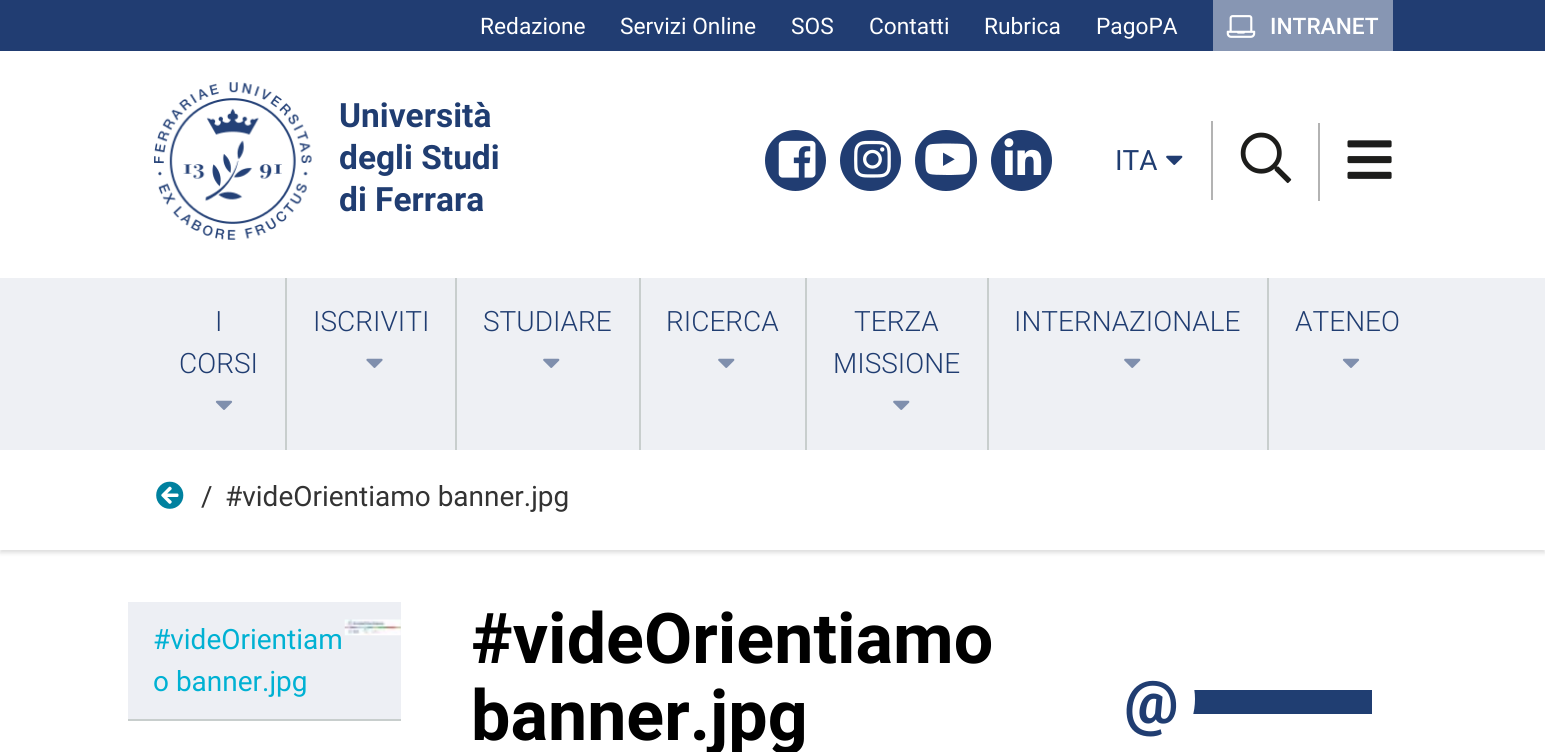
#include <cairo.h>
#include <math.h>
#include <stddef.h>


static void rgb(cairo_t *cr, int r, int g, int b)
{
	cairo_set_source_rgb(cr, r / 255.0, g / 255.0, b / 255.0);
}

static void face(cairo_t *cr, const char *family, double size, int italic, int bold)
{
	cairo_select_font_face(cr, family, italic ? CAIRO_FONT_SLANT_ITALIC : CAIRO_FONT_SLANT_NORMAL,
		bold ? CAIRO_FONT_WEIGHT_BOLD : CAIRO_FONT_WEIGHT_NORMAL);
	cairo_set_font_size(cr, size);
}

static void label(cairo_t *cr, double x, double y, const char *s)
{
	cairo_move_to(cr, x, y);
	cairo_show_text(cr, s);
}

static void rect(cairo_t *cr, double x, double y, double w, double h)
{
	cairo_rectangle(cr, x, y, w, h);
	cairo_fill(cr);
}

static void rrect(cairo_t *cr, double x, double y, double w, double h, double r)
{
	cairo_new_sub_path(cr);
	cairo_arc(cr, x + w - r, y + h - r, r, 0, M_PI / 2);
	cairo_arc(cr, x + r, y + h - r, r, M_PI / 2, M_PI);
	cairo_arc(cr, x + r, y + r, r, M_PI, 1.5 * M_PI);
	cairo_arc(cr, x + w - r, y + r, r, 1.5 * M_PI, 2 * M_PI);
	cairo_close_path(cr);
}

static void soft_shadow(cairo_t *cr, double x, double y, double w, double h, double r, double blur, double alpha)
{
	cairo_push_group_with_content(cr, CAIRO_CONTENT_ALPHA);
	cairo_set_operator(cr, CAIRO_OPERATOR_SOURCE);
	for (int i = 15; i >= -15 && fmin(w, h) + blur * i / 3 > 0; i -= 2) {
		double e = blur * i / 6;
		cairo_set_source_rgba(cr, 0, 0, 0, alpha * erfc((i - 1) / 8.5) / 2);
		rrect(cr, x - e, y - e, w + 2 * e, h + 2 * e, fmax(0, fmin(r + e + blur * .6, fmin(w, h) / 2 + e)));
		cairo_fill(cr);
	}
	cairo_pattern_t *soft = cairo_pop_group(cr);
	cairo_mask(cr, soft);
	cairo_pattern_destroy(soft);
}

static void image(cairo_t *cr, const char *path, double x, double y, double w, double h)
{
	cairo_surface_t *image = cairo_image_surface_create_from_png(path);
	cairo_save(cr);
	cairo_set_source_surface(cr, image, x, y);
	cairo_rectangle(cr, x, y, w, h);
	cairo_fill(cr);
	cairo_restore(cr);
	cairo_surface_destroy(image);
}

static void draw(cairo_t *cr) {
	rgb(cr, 255, 255, 255);
	cairo_paint(cr);
	rgb(cr, 33, 61, 114);
	rect(cr, 0, 0, 1545, 51);
	face(cr, "Roboto", 22.75, 0, 0);
	rgb(cr, 255, 255, 255);
	label(cr, 480, 34, "Redazione");
	label(cr, 620, 34, "Servizi Online");
	label(cr, 791, 34, "SOS");
	label(cr, 869, 34, "Contatti");
	label(cr, 984, 34, "Rubrica");
	label(cr, 1096, 34, "PagoPA");
	rgb(cr, 135, 150, 179);
	rect(cr, 1213, 0, 180, 51);
	image(cr, "image0.png", 1226, 15, 30, 23);
	face(cr, "Roboto Medium", 22.75, 0, 0);
	rgb(cr, 255, 255, 255);
	label(cr, 1270, 34, "INTRANET");
	image(cr, "image1.png", 154, 82, 158, 158);
	face(cr, "Roboto", 33.5, 0, 1);
	rgb(cr, 32, 61, 113);
	label(cr, 339, 127, "Università");
	label(cr, 339, 169, "degli Studi");
	label(cr, 339, 211, "di Ferrara");
	rgb(cr, 33, 61, 114);
	cairo_new_path(cr);
	cairo_arc(cr, 795.5, 160.5, 30.5, 0, 2 * M_PI);
	cairo_fill(cr);
	image(cr, "image2.png", 778, 140, 38, 38);
	cairo_arc(cr, 870.5, 160.5, 30.5, 0, 2 * M_PI);
	cairo_fill(cr);
	image(cr, "image3.png", 854, 140, 37, 38);
	rrect(cr, 915, 130, 62, 61, 30.5);
	cairo_fill(cr);
	image(cr, "image4.png", 925, 143, 45, 32);
	cairo_arc(cr, 1021.5, 160.5, 30.5, 0, 2 * M_PI);
	cairo_fill(cr);
	image(cr, "image5.png", 1004, 138, 38, 37);
	face(cr, "Roboto", 28, 0, 0);
	rgb(cr, 32, 61, 113);
	label(cr, 1115, 170, "ITA");
	image(cr, "image6.png", 1166, 155, 17, 10);
	rgb(cr, 179, 179, 179);
	rect(cr, 1211, 121, 2, 79);
	image(cr, "image7.png", 1240, 132, 52, 52);
	rect(cr, 1318, 123, 2, 78);
	image(cr, "image8.png", 1347, 140, 45, 39);
	rgb(cr, 0, 0, 0);
	soft_shadow(cr, 0, 453, 1545, 100, 0, 2, 0.13);
	rgb(cr, 238, 240, 244);
	rect(cr, 0, 278, 1545, 172);
	rgb(cr, 200, 206, 205);
	rect(cr, 285, 278, 2, 172);
	face(cr, "Roboto Light", 28, 0, 0);
	rgb(cr, 32, 61, 113);
	label(cr, 215, 331, "I");
	label(cr, 179, 373, "CORSI");
	image(cr, "image9.png", 215, 400, 18, 10);
	rgb(cr, 200, 206, 205);
	rect(cr, 455, 278, 2, 172);
	rgb(cr, 32, 61, 113);
	label(cr, 313, 331, "ISCRIVITI");
	image(cr, "image10.png", 366, 358, 17, 10);
	rgb(cr, 200, 206, 205);
	rect(cr, 639, 278, 2, 172);
	rgb(cr, 32, 61, 113);
	label(cr, 483, 331, "STUDIARE");
	image(cr, "image11.png", 543, 358, 17, 10);
	rgb(cr, 200, 206, 205);
	rect(cr, 805, 278, 2, 172);
	rgb(cr, 32, 61, 113);
	label(cr, 666, 331, "RICERCA");
	image(cr, "image11.png", 718, 358, 17, 10);
	rgb(cr, 200, 206, 205);
	rect(cr, 987, 278, 2, 172);
	rgb(cr, 32, 61, 113);
	label(cr, 854, 331, "TERZA");
	label(cr, 833, 373, "MISSIONE");
	image(cr, "image11.png", 893, 400, 17, 10);
	rgb(cr, 200, 206, 205);
	rect(cr, 1267, 278, 2, 172);
	rgb(cr, 32, 61, 113);
	label(cr, 1014, 331, "INTERNAZIONALE");
	image(cr, "image11.png", 1124, 358, 17, 10);
	label(cr, 1295, 331, "ATENEO");
	image(cr, "image9.png", 1342, 358, 18, 10);
	rgb(cr, 255, 255, 255);
	rect(cr, 0, 450, 1545, 100);
	image(cr, "image12.png", 156, 481, 28, 28);
	face(cr, "Roboto", 28, 0, 0);
	rgb(cr, 51, 51, 51);
	label(cr, 201, 506, "/");
	label(cr, 225, 506, "#videOrientiamo banner.jpg");
	rgb(cr, 237, 239, 244);
	rect(cr, 128, 602, 273, 117);
	rgb(cr, 200, 206, 205);
	rect(cr, 128, 719, 273, 2);
	rgb(cr, 0, 177, 211);
	label(cr, 153, 649, "#videOrientiam");
	image(cr, "image13.png", 344, 619, 57, 17);
	label(cr, 153, 691, "o banner.jpg");
	face(cr, "Roboto", 70, 0, 1);
	rgb(cr, 0, 0, 0);
	label(cr, 471, 663, "#videOrientiamo");
	label(cr, 471, 740, "banner.jpg");
	rgb(cr, 32, 62, 114);
	rect(cr, 1193, 690, 179, 24);
	rgb(cr, 255, 255, 255);
	cairo_new_path(cr);
	cairo_move_to(cr, 1124, 651);
	cairo_line_to(cr, 1159, 651);
	cairo_curve_to(cr, 1179, 651, 1195, 673, 1195, 699);
	cairo_curve_to(cr, 1195, 726, 1179, 747, 1159, 747);
	cairo_line_to(cr, 1124, 747);
	cairo_close_path(cr);
	cairo_fill(cr);
	face(cr, "Roboto", 61, 0, 1);
	rgb(cr, 32, 61, 113);
	label(cr, 1124, 723, "@");
}

int main(void) {
	cairo_surface_t *surface = cairo_image_surface_create(CAIRO_FORMAT_RGB24, 1545, 752);
	cairo_t *cr = cairo_create(surface);
	cairo_font_options_t *options = cairo_font_options_create();
	cairo_font_options_set_hint_metrics(options, CAIRO_HINT_METRICS_OFF);
	cairo_font_options_set_hint_style(options, CAIRO_HINT_STYLE_NONE);
	cairo_set_font_options(cr, options);
	cairo_set_miter_limit(cr, 4);
	draw(cr);
	cairo_surface_write_to_png(surface, "render.png");
	cairo_font_options_destroy(options);
	cairo_destroy(cr);
	cairo_surface_destroy(surface);
	return 0;
}
